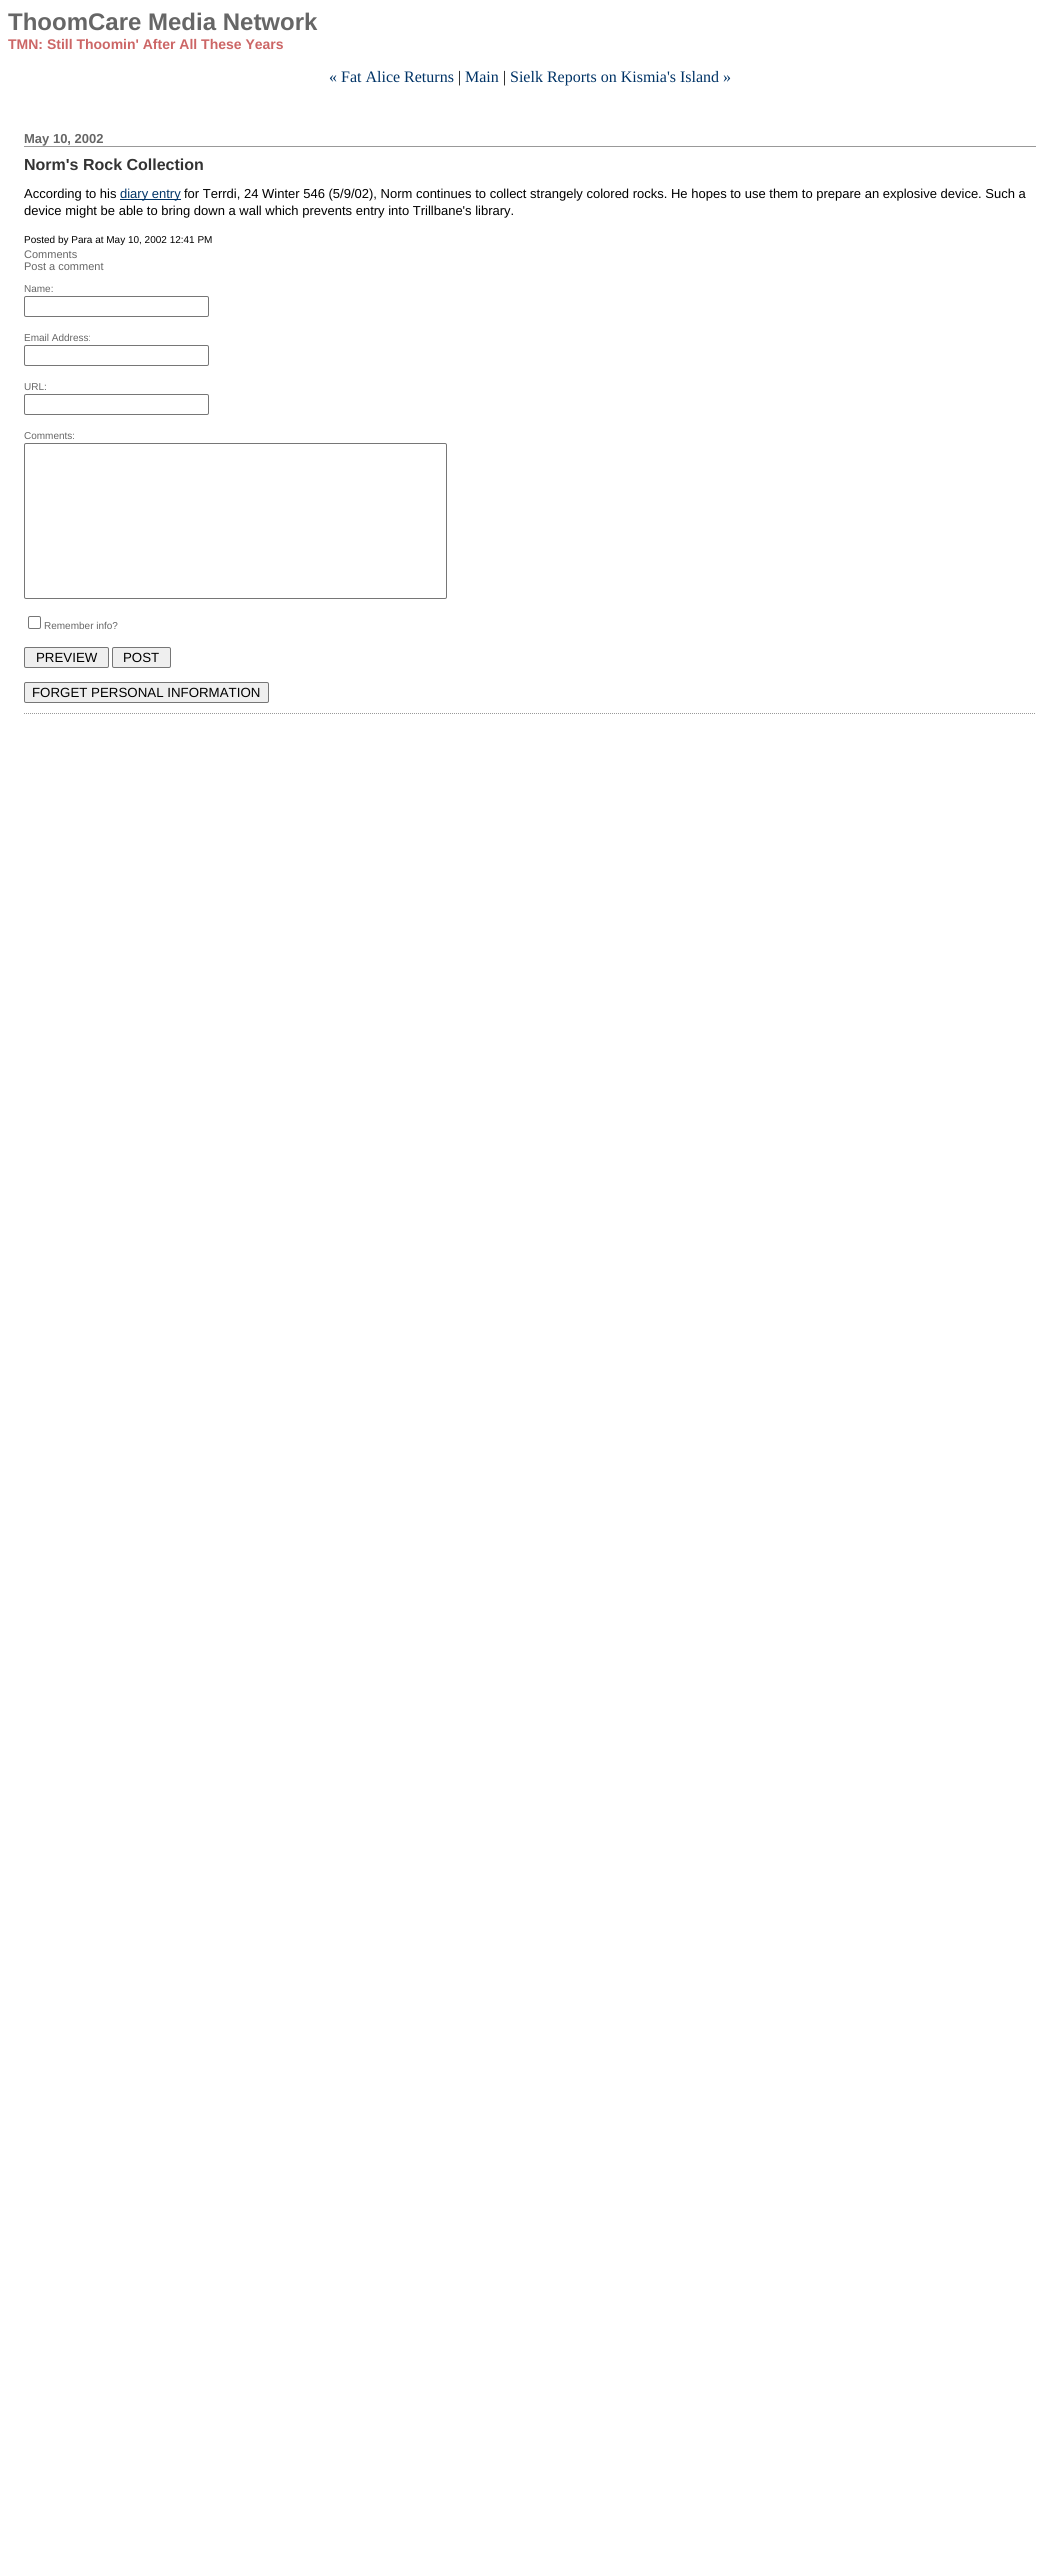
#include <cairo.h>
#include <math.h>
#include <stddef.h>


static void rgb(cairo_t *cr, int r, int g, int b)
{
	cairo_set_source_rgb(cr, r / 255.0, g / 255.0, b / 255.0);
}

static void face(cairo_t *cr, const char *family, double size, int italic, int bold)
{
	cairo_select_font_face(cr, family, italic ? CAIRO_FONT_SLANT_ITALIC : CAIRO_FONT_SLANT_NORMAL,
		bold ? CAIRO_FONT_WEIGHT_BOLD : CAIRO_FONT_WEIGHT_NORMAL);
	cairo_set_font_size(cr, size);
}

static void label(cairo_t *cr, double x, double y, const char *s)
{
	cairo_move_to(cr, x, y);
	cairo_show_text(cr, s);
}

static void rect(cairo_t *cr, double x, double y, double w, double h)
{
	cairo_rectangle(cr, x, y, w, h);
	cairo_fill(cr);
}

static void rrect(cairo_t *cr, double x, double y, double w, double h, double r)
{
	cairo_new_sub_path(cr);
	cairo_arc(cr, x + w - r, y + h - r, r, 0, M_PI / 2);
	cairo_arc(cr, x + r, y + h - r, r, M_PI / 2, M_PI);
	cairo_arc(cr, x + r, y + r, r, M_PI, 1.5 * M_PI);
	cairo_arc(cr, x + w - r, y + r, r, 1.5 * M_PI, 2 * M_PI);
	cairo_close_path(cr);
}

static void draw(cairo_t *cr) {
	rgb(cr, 255, 255, 255);
	cairo_paint(cr);
	face(cr, "Liberation Sans", 24, 0, 1);
	rgb(cr, 102, 102, 102);
	label(cr, 8, 30, "ThoomCare Media Network");
	face(cr, "Liberation Sans", 14, 0, 1);
	rgb(cr, 204, 102, 102);
	label(cr, 8, 49, "TMN: Still Thoomin' After All These Years");
	face(cr, "Liberation Serif", 16, 0, 0);
	rgb(cr, 0, 51, 102);
	label(cr, 329, 82, "« Fat Alice Returns");
	rgb(cr, 0, 0, 0);
	label(cr, 458, 82, "|");
	rgb(cr, 0, 51, 102);
	label(cr, 465, 82, "Main");
	rgb(cr, 0, 0, 0);
	label(cr, 503, 82, "|");
	rgb(cr, 0, 51, 102);
	label(cr, 510, 82, "Sielk Reports on Kismia's Island »");
	rgb(cr, 153, 153, 153);
	rect(cr, 24, 146, 1012, 1);
	face(cr, "Liberation Sans", 13, 0, 1);
	rgb(cr, 102, 102, 102);
	label(cr, 24, 143, "May 10, 2002");
	face(cr, "Liberation Sans", 16, 0, 1);
	rgb(cr, 51, 51, 51);
	label(cr, 24, 170, "Norm's Rock Collection");
	face(cr, "Liberation Sans", 13, 0, 0);
	rgb(cr, 0, 0, 0);
	label(cr, 24, 198, "According to his");
	rgb(cr, 0, 51, 102);
	rect(cr, 120, 199, 61, 1);
	label(cr, 120, 198, "diary entry");
	rgb(cr, 0, 0, 0);
	label(cr, 184, 198, "for Terrdi, 24 Winter 546 (5/9/02), Norm continues to collect strangely colored rocks. He hopes to use them to prepare an explosive device. Such a");
	label(cr, 24, 215, "device might be able to bring down a wall which prevents entry into Trillbane's library.");
	face(cr, "Liberation Sans", 10, 0, 0);
	label(cr, 24, 243, "Posted by Para at May 10, 2002 12:41 PM");
	face(cr, "Liberation Sans", 11, 0, 0);
	rgb(cr, 102, 102, 102);
	label(cr, 24, 258, "Comments");
	label(cr, 24, 270, "Post a comment");
	cairo_new_path(cr);
	cairo_move_to(cr, 24, 713.5);
	cairo_line_to(cr, 1036, 713.5);
	rgb(cr, 153, 153, 153);
	cairo_set_line_width(cr, 1);
	cairo_set_dash(cr, (double[]){1, 1}, 2, 0);
	cairo_stroke(cr);
	face(cr, "Liberation Sans", 10, 0, 0);
	rgb(cr, 102, 102, 102);
	label(cr, 24, 292, "Name:");
	rrect(cr, 24.5, 296.5, 184, 20, 1.5);
	rgb(cr, 118, 118, 118);
	cairo_set_dash(cr, NULL, 0, 0);
	cairo_stroke(cr);
	rgb(cr, 102, 102, 102);
	label(cr, 24, 341, "Email Address:");
	rrect(cr, 24.5, 345.5, 184, 20, 1.5);
	rgb(cr, 118, 118, 118);
	cairo_stroke(cr);
	rgb(cr, 102, 102, 102);
	label(cr, 24, 390, "URL:");
	rrect(cr, 24.5, 394.5, 184, 20, 1.5);
	rgb(cr, 118, 118, 118);
	cairo_stroke(cr);
	rgb(cr, 102, 102, 102);
	label(cr, 24, 439, "Comments:");
	rrect(cr, 24.5, 443.5, 422, 155, 1.5);
	rgb(cr, 118, 118, 118);
	cairo_stroke(cr);
	rrect(cr, 28.5, 616.5, 12, 12, 1.5);
	cairo_stroke(cr);
	rgb(cr, 102, 102, 102);
	label(cr, 44, 629, "Remember info?");
	rgb(cr, 239, 239, 239);
	rrect(cr, 24.5, 647.5, 84, 20, 1.5);
	cairo_fill_preserve(cr);
	rgb(cr, 118, 118, 118);
	cairo_stroke(cr);
	face(cr, "Liberation Sans", 13.3, 0, 0);
	rgb(cr, 0, 0, 0);
	label(cr, 36, 662, "PREVIEW");
	rgb(cr, 239, 239, 239);
	rrect(cr, 112.5, 647.5, 58, 20, 1.5);
	cairo_fill_preserve(cr);
	rgb(cr, 118, 118, 118);
	cairo_stroke(cr);
	rgb(cr, 0, 0, 0);
	label(cr, 123, 662, "POST");
	rgb(cr, 239, 239, 239);
	rrect(cr, 24.5, 682.5, 244, 20, 1.5);
	cairo_fill_preserve(cr);
	rgb(cr, 118, 118, 118);
	cairo_stroke(cr);
	rgb(cr, 0, 0, 0);
	label(cr, 32, 697, "FORGET PERSONAL INFORMATION");
}

int main(void) {
	cairo_surface_t *surface = cairo_image_surface_create(CAIRO_FORMAT_RGB24, 1060, 2562);
	cairo_t *cr = cairo_create(surface);
	cairo_font_options_t *options = cairo_font_options_create();
	cairo_font_options_set_hint_metrics(options, CAIRO_HINT_METRICS_OFF);
	cairo_font_options_set_hint_style(options, CAIRO_HINT_STYLE_NONE);
	cairo_set_font_options(cr, options);
	cairo_set_miter_limit(cr, 4);
	draw(cr);
	cairo_surface_write_to_png(surface, "render.png");
	cairo_font_options_destroy(options);
	cairo_destroy(cr);
	cairo_surface_destroy(surface);
	return 0;
}
